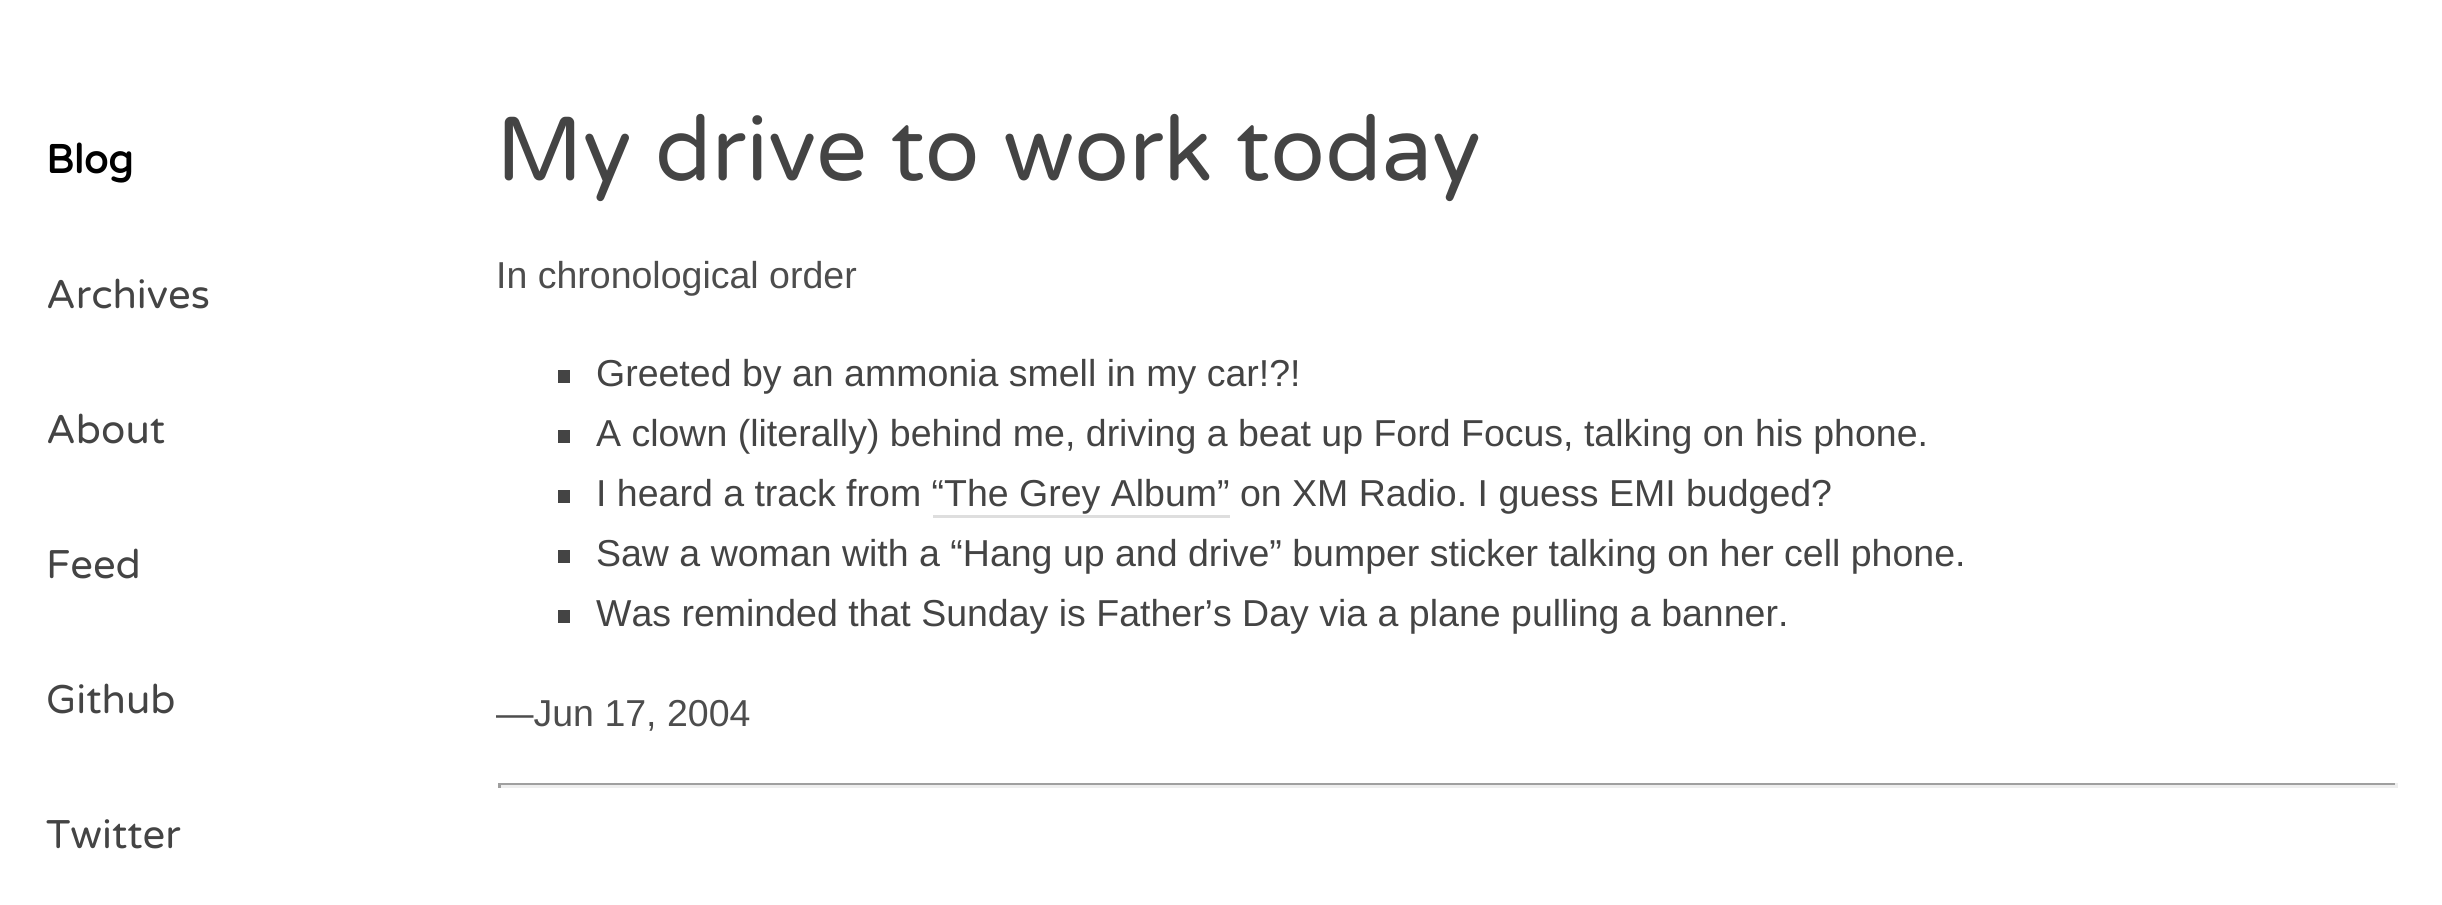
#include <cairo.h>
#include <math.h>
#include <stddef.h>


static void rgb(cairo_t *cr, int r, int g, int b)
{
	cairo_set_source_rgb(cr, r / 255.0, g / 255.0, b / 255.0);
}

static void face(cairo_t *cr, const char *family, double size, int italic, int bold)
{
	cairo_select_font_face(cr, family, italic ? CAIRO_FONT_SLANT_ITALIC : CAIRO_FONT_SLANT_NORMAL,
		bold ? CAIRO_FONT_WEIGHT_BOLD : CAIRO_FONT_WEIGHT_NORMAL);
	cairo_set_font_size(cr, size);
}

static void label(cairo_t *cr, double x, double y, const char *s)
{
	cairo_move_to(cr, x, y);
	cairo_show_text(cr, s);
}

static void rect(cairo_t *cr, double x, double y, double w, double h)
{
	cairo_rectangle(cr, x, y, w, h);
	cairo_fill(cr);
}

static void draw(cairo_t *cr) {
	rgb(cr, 255, 255, 255);
	cairo_paint(cr);
	face(cr, "Varela Round", 40, 0, 1);
	rgb(cr, 0, 0, 0);
	label(cr, 46, 173, "Blog");
	face(cr, "Varela Round", 40, 0, 0);
	rgb(cr, 68, 68, 68);
	label(cr, 46, 308, "Archives");
	label(cr, 46, 443, "About");
	label(cr, 46, 578, "Feed");
	label(cr, 46, 713, "Github");
	label(cr, 46, 848, "Twitter");
	face(cr, "Varela Round", 90, 0, 0);
	label(cr, 496, 180, "My drive to work today");
	face(cr, "Liberation Sans", 37.5, 0, 0);
	rgb(cr, 77, 77, 77);
	label(cr, 496, 288, "In chronological order");
	rgb(cr, 68, 68, 68);
	rect(cr, 558, 370, 12, 13);
	label(cr, 596, 386, "Greeted by an ammonia smell in my car!?!");
	rect(cr, 558, 430, 12, 13);
	label(cr, 596, 446, "A clown (literally) behind me, driving a beat up Ford Focus, talking on his phone.");
	rect(cr, 558, 490, 12, 13);
	label(cr, 596, 506, "I heard a track from “The Grey Album” on XM Radio. I guess EMI budged?");
	rgb(cr, 222, 222, 222);
	rect(cr, 933, 515, 297, 3);
	rgb(cr, 68, 68, 68);
	rect(cr, 558, 550, 12, 13);
	label(cr, 596, 566, "Saw a woman with a “Hang up and drive” bumper sticker talking on her cell phone.");
	rect(cr, 558, 610, 12, 13);
	label(cr, 596, 626, "Was reminded that Sunday is Father’s Day via a plane pulling a banner.");
	rgb(cr, 77, 77, 77);
	label(cr, 496, 726, "—Jun 17, 2004");
	rgb(cr, 159, 159, 159);
	rect(cr, 498, 783, 1900, 2);
	rgb(cr, 238, 238, 238);
	rect(cr, 2395, 783, 3, 5);
	rect(cr, 498, 785, 1900, 3);
	rgb(cr, 159, 159, 159);
	rect(cr, 498, 783, 3, 5);
}

int main(void) {
	cairo_surface_t *surface = cairo_image_surface_create(CAIRO_FORMAT_RGB24, 2442, 905);
	cairo_t *cr = cairo_create(surface);
	cairo_font_options_t *options = cairo_font_options_create();
	cairo_font_options_set_hint_metrics(options, CAIRO_HINT_METRICS_OFF);
	cairo_font_options_set_hint_style(options, CAIRO_HINT_STYLE_NONE);
	cairo_set_font_options(cr, options);
	cairo_set_miter_limit(cr, 4);
	draw(cr);
	cairo_surface_write_to_png(surface, "render.png");
	cairo_font_options_destroy(options);
	cairo_destroy(cr);
	cairo_surface_destroy(surface);
	return 0;
}
